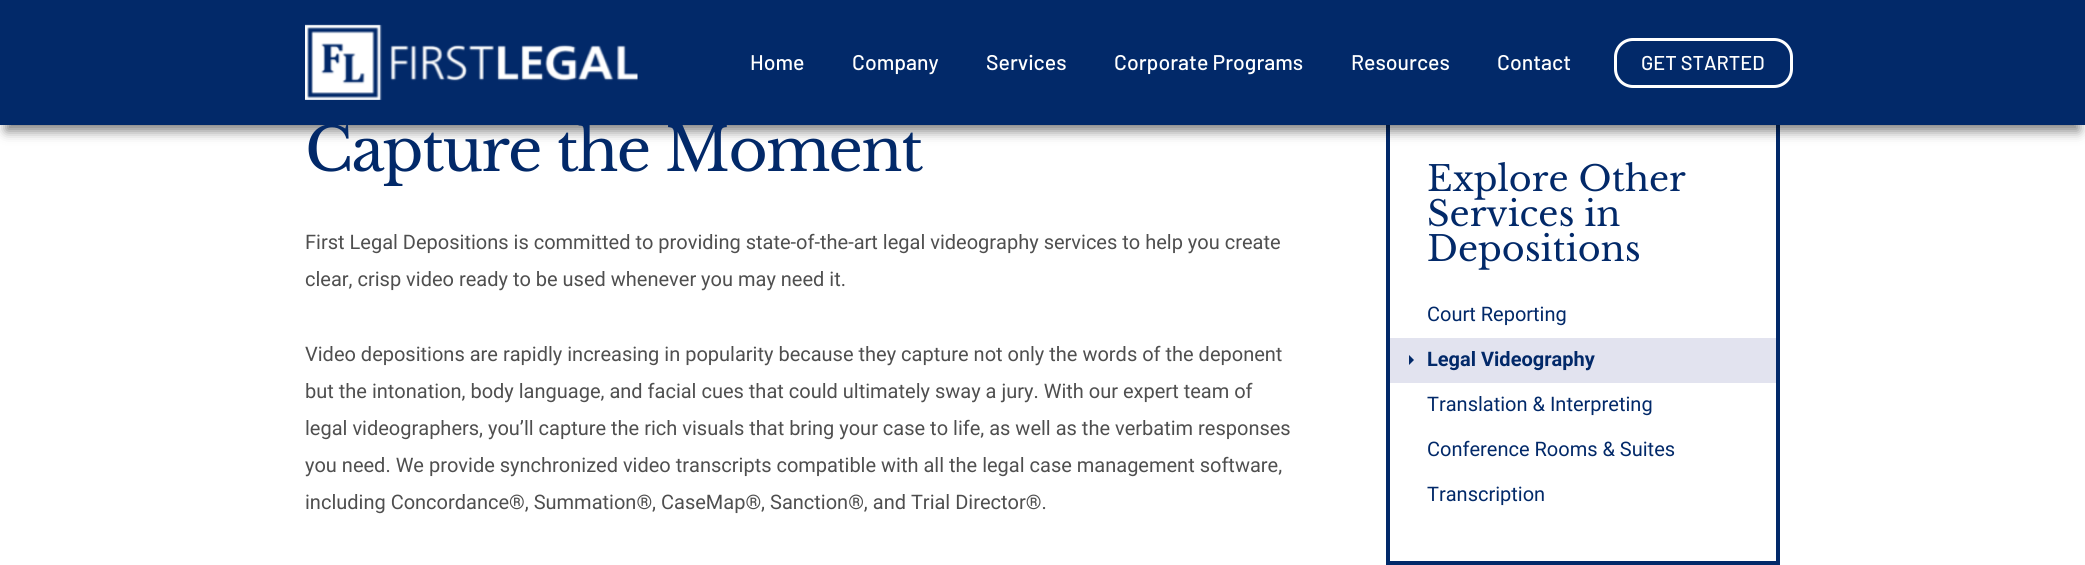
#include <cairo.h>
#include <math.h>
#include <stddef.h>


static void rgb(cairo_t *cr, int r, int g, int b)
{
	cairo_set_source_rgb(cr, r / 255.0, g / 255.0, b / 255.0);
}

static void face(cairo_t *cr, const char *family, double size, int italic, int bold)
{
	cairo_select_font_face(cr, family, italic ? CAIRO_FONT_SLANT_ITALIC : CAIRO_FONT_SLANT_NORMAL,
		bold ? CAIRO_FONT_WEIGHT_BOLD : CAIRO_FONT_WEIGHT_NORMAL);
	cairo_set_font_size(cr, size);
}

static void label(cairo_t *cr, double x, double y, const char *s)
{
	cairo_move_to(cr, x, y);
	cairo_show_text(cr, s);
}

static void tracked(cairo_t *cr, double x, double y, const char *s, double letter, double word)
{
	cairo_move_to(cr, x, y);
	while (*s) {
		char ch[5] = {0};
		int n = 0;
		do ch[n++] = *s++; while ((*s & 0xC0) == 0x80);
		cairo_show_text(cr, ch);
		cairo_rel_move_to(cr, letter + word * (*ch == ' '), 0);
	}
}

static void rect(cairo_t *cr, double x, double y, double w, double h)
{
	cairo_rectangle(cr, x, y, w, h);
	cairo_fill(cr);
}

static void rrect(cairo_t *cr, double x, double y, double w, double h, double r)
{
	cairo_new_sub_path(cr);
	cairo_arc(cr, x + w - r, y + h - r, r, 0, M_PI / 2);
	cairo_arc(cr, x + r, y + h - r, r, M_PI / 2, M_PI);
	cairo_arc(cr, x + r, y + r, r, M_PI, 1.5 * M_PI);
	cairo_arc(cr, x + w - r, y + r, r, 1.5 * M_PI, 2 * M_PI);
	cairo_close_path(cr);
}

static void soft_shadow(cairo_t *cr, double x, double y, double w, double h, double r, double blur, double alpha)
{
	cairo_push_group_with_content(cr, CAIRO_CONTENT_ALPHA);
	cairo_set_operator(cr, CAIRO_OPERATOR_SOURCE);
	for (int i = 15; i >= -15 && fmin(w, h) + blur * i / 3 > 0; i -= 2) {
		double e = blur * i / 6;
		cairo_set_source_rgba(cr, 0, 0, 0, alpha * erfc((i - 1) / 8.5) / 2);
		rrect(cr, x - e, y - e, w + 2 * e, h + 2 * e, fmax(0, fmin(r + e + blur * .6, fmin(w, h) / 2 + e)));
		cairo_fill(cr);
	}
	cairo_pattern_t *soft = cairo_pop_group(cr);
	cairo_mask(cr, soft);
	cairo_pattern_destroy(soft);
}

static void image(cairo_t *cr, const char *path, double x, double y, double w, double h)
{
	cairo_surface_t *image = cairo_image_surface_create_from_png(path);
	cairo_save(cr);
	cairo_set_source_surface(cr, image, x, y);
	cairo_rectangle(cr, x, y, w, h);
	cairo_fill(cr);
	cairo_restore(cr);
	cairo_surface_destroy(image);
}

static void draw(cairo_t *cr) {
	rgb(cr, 255, 255, 255);
	cairo_paint(cr);
	cairo_rectangle(cr, 1388, 117, 390, 446);
	rgb(cr, 2, 41, 105);
	cairo_set_line_width(cr, 4);
	cairo_stroke(cr);
	rgb(cr, 0, 0, 0);
	soft_shadow(cr, 6, 19, 2073, 112, 0, 6, 0.5);
	rgb(cr, 2, 41, 105);
	rect(cr, 0, 0, 2085, 125);
	image(cr, "image0.png", 305, 24, 333, 76);
	face(cr, "Barlow Medium", 21.25, 0, 0);
	rgb(cr, 255, 255, 255);
	label(cr, 750, 70, "Home");
	label(cr, 852, 70, "Company");
	label(cr, 986, 70, "Services");
	label(cr, 1114, 70, "Corporate Programs");
	label(cr, 1351, 70, "Resources");
	label(cr, 1497, 70, "Contact");
	rrect(cr, 1615.5, 39.5, 176, 47, 17.5);
	cairo_set_line_width(cr, 3);
	cairo_stroke(cr);
	face(cr, "Barlow Medium", 20, 0, 0);
	label(cr, 1641, 70, "GET STARTED");
	face(cr, "Libre Baskerville", 60, 0, 0);
	rgb(cr, 2, 41, 105);
	tracked(cr, 305, 171, "Capture the Moment", -1.75, 0);
	face(cr, "Roboto", 20, 0, 0);
	rgb(cr, 79, 79, 79);
	label(cr, 305, 249, "First Legal Depositions is committed to providing state-of-the-art legal videography services to help you create");
	label(cr, 305, 286, "clear, crisp video ready to be used whenever you may need it.");
	label(cr, 305, 361, "Video depositions are rapidly increasing in popularity because they capture not only the words of the deponent");
	label(cr, 305, 398, "but the intonation, body language, and facial cues that could ultimately sway a jury. With our expert team of");
	label(cr, 305, 435, "legal videographers, you’ll capture the rich visuals that bring your case to life, as well as the verbatim responses");
	label(cr, 305, 472, "you need. We provide synchronized video transcripts compatible with all the legal case management software,");
	label(cr, 305, 509, "including Concordance®, Summation®, CaseMap®, Sanction®, and Trial Director®.");
	face(cr, "Libre Baskerville", 35, 0, 0);
	rgb(cr, 2, 41, 105);
	label(cr, 1427, 191, "Explore Other");
	label(cr, 1427, 226, "Services in");
	label(cr, 1427, 261, "Depositions");
	face(cr, "Roboto", 20, 0, 0);
	label(cr, 1427, 321, "Court Reporting");
	rgb(cr, 226, 227, 239);
	rect(cr, 1390, 338, 386, 45);
	rgb(cr, 2, 41, 105);
	cairo_new_path(cr);
	cairo_move_to(cr, 1409, 365);
	cairo_line_to(cr, 1409, 355);
	cairo_line_to(cr, 1414, 360);
	cairo_close_path(cr);
	cairo_fill(cr);
	face(cr, "Roboto", 20, 0, 1);
	label(cr, 1427, 366, "Legal Videography");
	face(cr, "Roboto", 20, 0, 0);
	label(cr, 1427, 411, "Translation & Interpreting");
	label(cr, 1427, 456, "Conference Rooms & Suites");
	label(cr, 1427, 501, "Transcription");
}

int main(void) {
	cairo_surface_t *surface = cairo_image_surface_create(CAIRO_FORMAT_RGB24, 2085, 565);
	cairo_t *cr = cairo_create(surface);
	cairo_font_options_t *options = cairo_font_options_create();
	cairo_font_options_set_hint_metrics(options, CAIRO_HINT_METRICS_OFF);
	cairo_font_options_set_hint_style(options, CAIRO_HINT_STYLE_NONE);
	cairo_set_font_options(cr, options);
	cairo_set_miter_limit(cr, 4);
	draw(cr);
	cairo_surface_write_to_png(surface, "render.png");
	cairo_font_options_destroy(options);
	cairo_destroy(cr);
	cairo_surface_destroy(surface);
	return 0;
}
